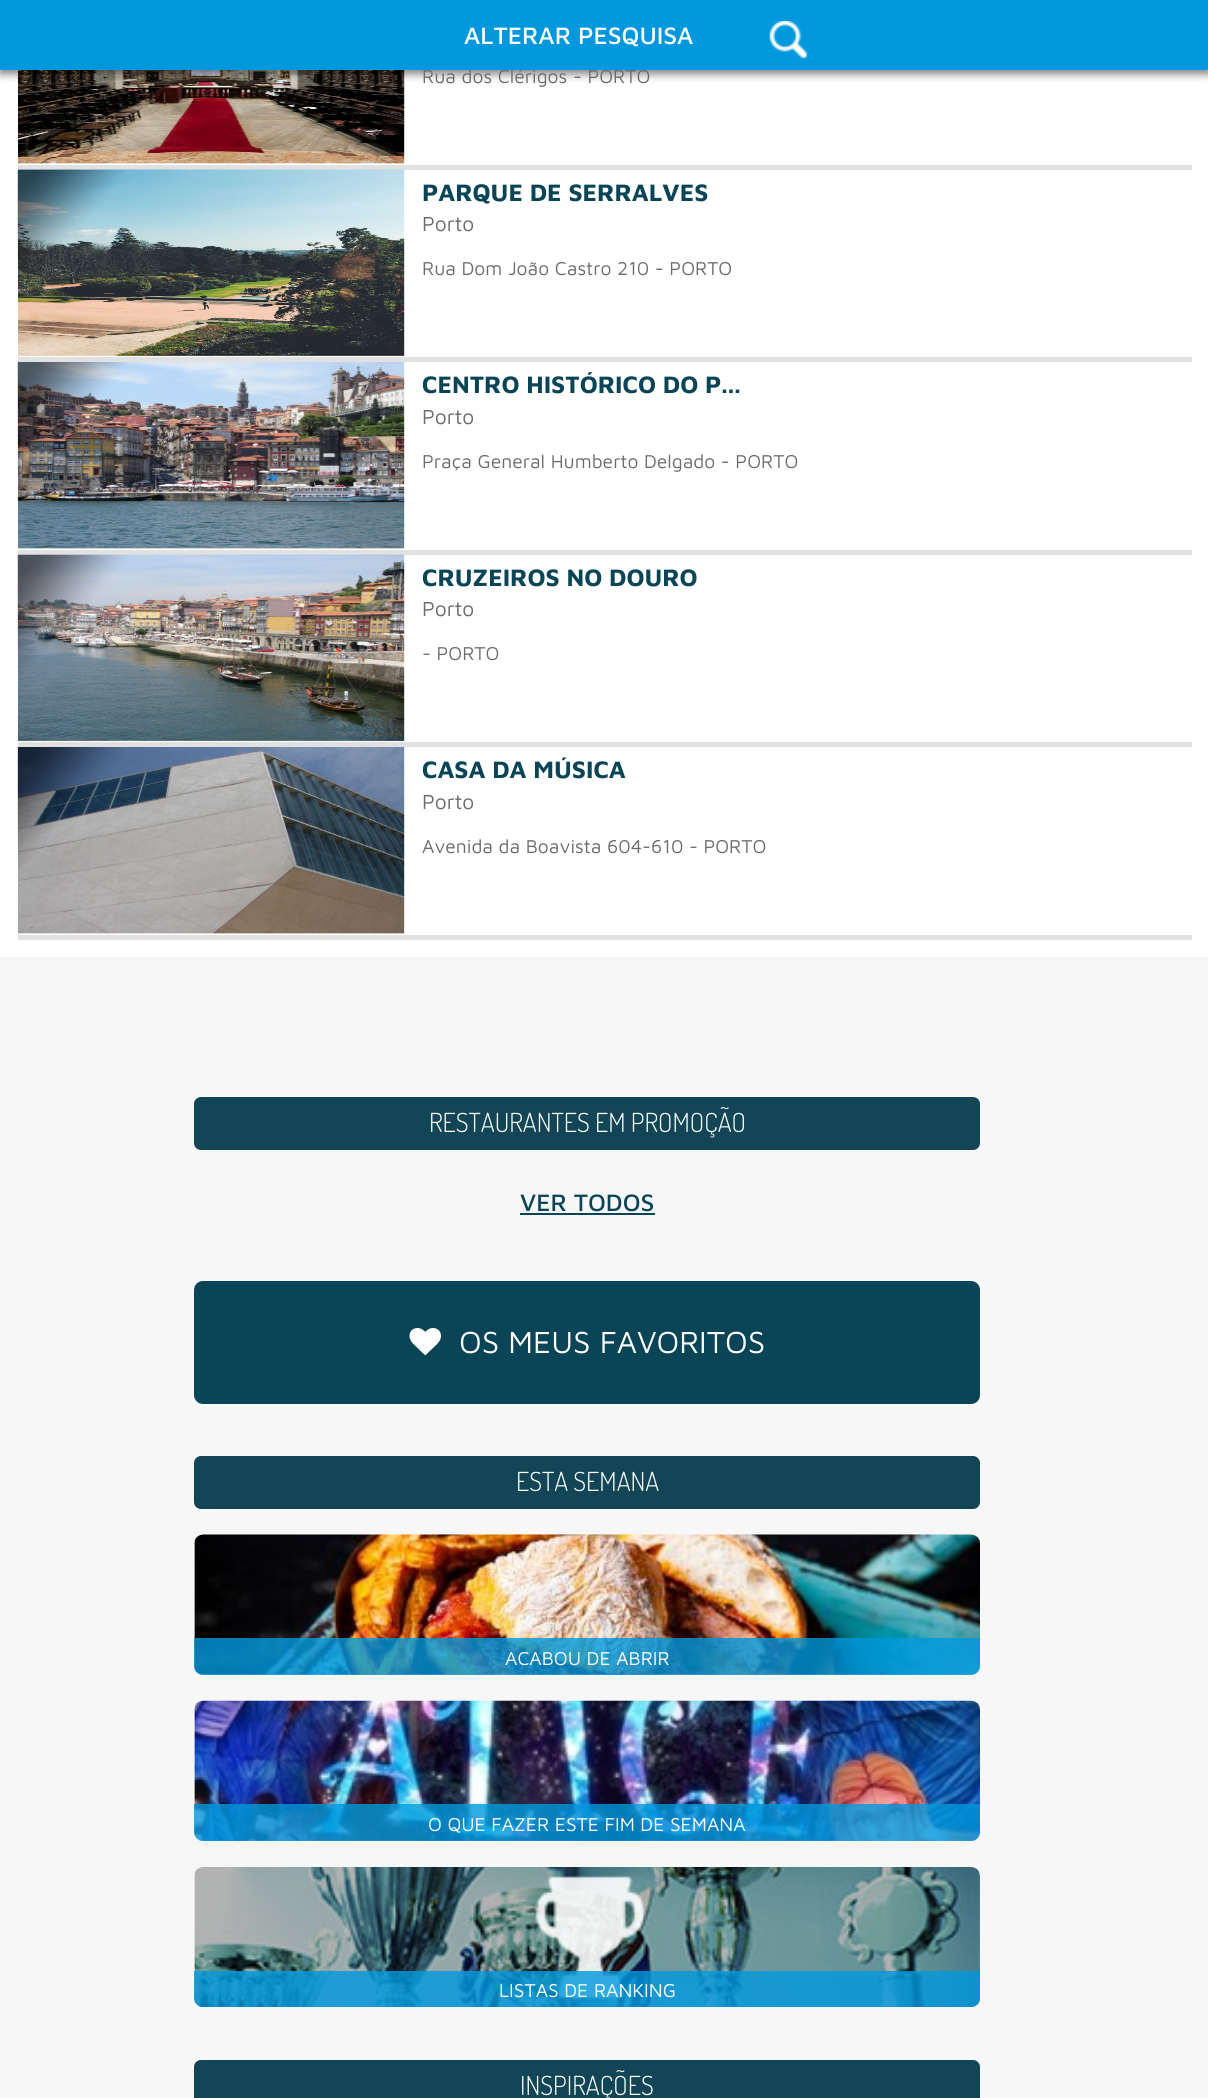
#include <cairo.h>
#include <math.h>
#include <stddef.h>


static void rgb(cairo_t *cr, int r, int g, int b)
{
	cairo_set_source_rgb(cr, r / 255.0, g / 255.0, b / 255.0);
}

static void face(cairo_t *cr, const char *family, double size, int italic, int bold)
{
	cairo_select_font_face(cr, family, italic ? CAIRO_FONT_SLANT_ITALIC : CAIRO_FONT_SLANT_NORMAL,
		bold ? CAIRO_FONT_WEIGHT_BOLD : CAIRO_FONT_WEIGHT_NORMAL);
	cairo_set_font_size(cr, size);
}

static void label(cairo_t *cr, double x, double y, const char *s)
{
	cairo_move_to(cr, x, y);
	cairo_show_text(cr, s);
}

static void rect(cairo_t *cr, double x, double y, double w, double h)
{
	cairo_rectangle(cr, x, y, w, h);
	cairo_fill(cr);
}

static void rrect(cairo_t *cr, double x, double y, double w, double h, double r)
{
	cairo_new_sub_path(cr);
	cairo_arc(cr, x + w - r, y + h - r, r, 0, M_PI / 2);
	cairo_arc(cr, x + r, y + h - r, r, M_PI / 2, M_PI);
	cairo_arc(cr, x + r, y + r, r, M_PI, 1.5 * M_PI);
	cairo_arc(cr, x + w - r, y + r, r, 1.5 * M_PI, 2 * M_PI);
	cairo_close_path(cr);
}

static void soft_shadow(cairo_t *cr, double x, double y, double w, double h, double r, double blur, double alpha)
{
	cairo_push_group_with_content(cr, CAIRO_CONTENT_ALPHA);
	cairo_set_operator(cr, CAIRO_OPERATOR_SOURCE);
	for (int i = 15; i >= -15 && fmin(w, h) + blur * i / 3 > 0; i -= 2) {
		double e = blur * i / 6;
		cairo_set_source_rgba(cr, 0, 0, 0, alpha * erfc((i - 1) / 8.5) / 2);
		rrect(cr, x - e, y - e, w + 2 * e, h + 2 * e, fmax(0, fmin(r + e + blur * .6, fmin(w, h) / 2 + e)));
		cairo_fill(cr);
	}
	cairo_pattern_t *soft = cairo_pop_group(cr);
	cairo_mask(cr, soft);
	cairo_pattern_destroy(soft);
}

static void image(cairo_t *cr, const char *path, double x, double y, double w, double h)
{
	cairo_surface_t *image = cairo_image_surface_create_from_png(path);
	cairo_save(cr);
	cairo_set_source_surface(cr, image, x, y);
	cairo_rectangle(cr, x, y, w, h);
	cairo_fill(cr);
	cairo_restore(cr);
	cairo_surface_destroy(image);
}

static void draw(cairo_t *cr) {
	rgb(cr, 255, 255, 255);
	cairo_paint(cr);
	image(cr, "image2.png", 18, 70, 387, 94);
	image(cr, "image1.png", 17, 70, 30, 25);
	rgb(cr, 0, 0, 0);
	soft_shadow(cr, 0, 4, 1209, 70, 0, 4.5, 0.5);
	face(cr, "Maven Pro", 19.25, 0, 0);
	rgb(cr, 107, 107, 107);
	label(cr, 422, 83, "Rua dos Clérigos - PORTO");
	rgb(cr, 0, 152, 221);
	rect(cr, 0, 0, 1208, 70);
	face(cr, "Maven Pro Medium", 24.5, 0, 0);
	rgb(cr, 255, 255, 255);
	label(cr, 464, 44, "ALTERAR PESQUISA");
	image(cr, "image0.png", 769, 21, 40, 38);
	rgb(cr, 225, 225, 225);
	rect(cr, 18, 165, 1174, 5);
	rect(cr, 18, 357, 1174, 5);
	image(cr, "image4.png", 18, 169, 387, 187);
	image(cr, "image3.png", 17, 169, 110, 123);
	face(cr, "Maven Pro", 24.5, 0, 1);
	rgb(cr, 9, 69, 86);
	label(cr, 422, 201, "PARQUE DE SERRALVES");
	face(cr, "Maven Pro", 21, 0, 0);
	rgb(cr, 107, 107, 107);
	label(cr, 422, 231, "Porto");
	face(cr, "Maven Pro", 19.25, 0, 0);
	label(cr, 422, 275, "Rua Dom João Castro 210 - PORTO");
	rgb(cr, 225, 225, 225);
	rect(cr, 18, 550, 1174, 5);
	image(cr, "image6.png", 18, 362, 387, 187);
	image(cr, "image5.png", 17, 362, 110, 122);
	face(cr, "Maven Pro", 24.5, 0, 1);
	rgb(cr, 9, 69, 86);
	label(cr, 422, 393, "CENTRO HISTÓRICO DO P...");
	face(cr, "Maven Pro", 21, 0, 0);
	rgb(cr, 107, 107, 107);
	label(cr, 422, 424, "Porto");
	face(cr, "Maven Pro", 19.25, 0, 0);
	label(cr, 422, 468, "Praça General Humberto Delgado - PORTO");
	rgb(cr, 225, 225, 225);
	rect(cr, 18, 742, 1174, 5);
	image(cr, "image8.png", 18, 554, 387, 187);
	image(cr, "image7.png", 17, 554, 110, 123);
	face(cr, "Maven Pro", 24.5, 0, 1);
	rgb(cr, 9, 69, 86);
	label(cr, 422, 586, "CRUZEIROS NO DOURO");
	face(cr, "Maven Pro", 21, 0, 0);
	rgb(cr, 107, 107, 107);
	label(cr, 422, 616, "Porto");
	face(cr, "Maven Pro", 19.25, 0, 0);
	label(cr, 422, 660, "- PORTO");
	rgb(cr, 225, 225, 225);
	rect(cr, 18, 935, 1174, 5);
	image(cr, "image10.png", 18, 747, 387, 187);
	image(cr, "image9.png", 17, 747, 108, 123);
	face(cr, "Maven Pro", 24.5, 0, 1);
	rgb(cr, 9, 69, 86);
	label(cr, 422, 778, "CASA DA MÚSICA");
	face(cr, "Maven Pro", 21, 0, 0);
	rgb(cr, 107, 107, 107);
	label(cr, 422, 809, "Porto");
	face(cr, "Maven Pro", 19.25, 0, 0);
	label(cr, 422, 853, "Avenida da Boavista 604-610 - PORTO");
	rgb(cr, 247, 247, 247);
	rect(cr, 0, 957, 1208, 1141);
	rgb(cr, 18, 69, 85);
	rrect(cr, 194, 1097, 786, 53, 7);
	cairo_fill(cr);
	face(cr, "Dosis Light", 26.25, 0, 0);
	rgb(cr, 255, 255, 255);
	label(cr, 429, 1132, "RESTAURANTES EM PROMOÇÃO");
	face(cr, "Maven Pro Medium", 24.5, 0, 0);
	rgb(cr, 9, 69, 86);
	label(cr, 520, 1211, "VER TODOS");
	rect(cr, 520, 1213, 135, 2);
	rrect(cr, 194, 1281, 786, 123, 9);
	cairo_fill(cr);
	image(cr, "image11.png", 409, 1328, 32, 27);
	face(cr, "Maven Pro", 31.5, 0, 0);
	rgb(cr, 255, 255, 255);
	label(cr, 459, 1353, "OS MEUS FAVORITOS");
	rgb(cr, 18, 69, 85);
	rrect(cr, 194, 1456, 786, 53, 7);
	cairo_fill(cr);
	face(cr, "Dosis Light", 26.25, 0, 0);
	rgb(cr, 255, 255, 255);
	label(cr, 516, 1491, "ESTA SEMANA");
	image(cr, "image12.png", 194, 1534, 786, 141);
	cairo_set_source_rgba(cr, 0, 0.596, 0.867, 0.8);
	cairo_new_path(cr);
	cairo_move_to(cr, 194, 1638);
	cairo_line_to(cr, 980, 1638);
	cairo_line_to(cr, 980, 1666);
	cairo_curve_to(cr, 980, 1671, 976, 1675, 971, 1675);
	cairo_line_to(cr, 203, 1675);
	cairo_curve_to(cr, 198, 1675, 194, 1671, 194, 1666);
	cairo_close_path(cr);
	cairo_fill(cr);
	face(cr, "Maven Pro", 19.25, 0, 0);
	rgb(cr, 255, 255, 255);
	label(cr, 505, 1665, "ACABOU DE ABRIR");
	image(cr, "image13.png", 194, 1700, 786, 141);
	cairo_set_source_rgba(cr, 0, 0.596, 0.867, 0.8);
	cairo_new_path(cr);
	cairo_move_to(cr, 194, 1804);
	cairo_line_to(cr, 980, 1804);
	cairo_line_to(cr, 980, 1832);
	cairo_curve_to(cr, 980, 1837, 976, 1841, 971, 1841);
	cairo_line_to(cr, 203, 1841);
	cairo_curve_to(cr, 198, 1841, 194, 1837, 194, 1832);
	cairo_close_path(cr);
	cairo_fill(cr);
	rgb(cr, 255, 255, 255);
	label(cr, 428, 1831, "O QUE FAZER ESTE FIM DE SEMANA");
	image(cr, "image14.png", 194, 1867, 786, 140);
	cairo_set_source_rgba(cr, 0, 0.596, 0.867, 0.8);
	cairo_new_path(cr);
	cairo_move_to(cr, 194, 1971);
	cairo_line_to(cr, 980, 1971);
	cairo_line_to(cr, 980, 1998);
	cairo_curve_to(cr, 980, 2003, 976, 2007, 971, 2007);
	cairo_line_to(cr, 203, 2007);
	cairo_curve_to(cr, 198, 2007, 194, 2003, 194, 1998);
	cairo_close_path(cr);
	cairo_fill(cr);
	rgb(cr, 255, 255, 255);
	label(cr, 499, 1997, "LISTAS DE RANKING");
	rgb(cr, 18, 69, 85);
	rrect(cr, 194, 2060, 786, 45, 7);
	cairo_fill(cr);
	face(cr, "Dosis Light", 26.25, 0, 0);
	rgb(cr, 255, 255, 255);
	label(cr, 520, 2095, "INSPIRAÇÕES");
}

int main(void) {
	cairo_surface_t *surface = cairo_image_surface_create(CAIRO_FORMAT_RGB24, 1208, 2098);
	cairo_t *cr = cairo_create(surface);
	cairo_font_options_t *options = cairo_font_options_create();
	cairo_font_options_set_hint_metrics(options, CAIRO_HINT_METRICS_OFF);
	cairo_font_options_set_hint_style(options, CAIRO_HINT_STYLE_NONE);
	cairo_set_font_options(cr, options);
	cairo_set_miter_limit(cr, 4);
	draw(cr);
	cairo_surface_write_to_png(surface, "render.png");
	cairo_font_options_destroy(options);
	cairo_destroy(cr);
	cairo_surface_destroy(surface);
	return 0;
}
